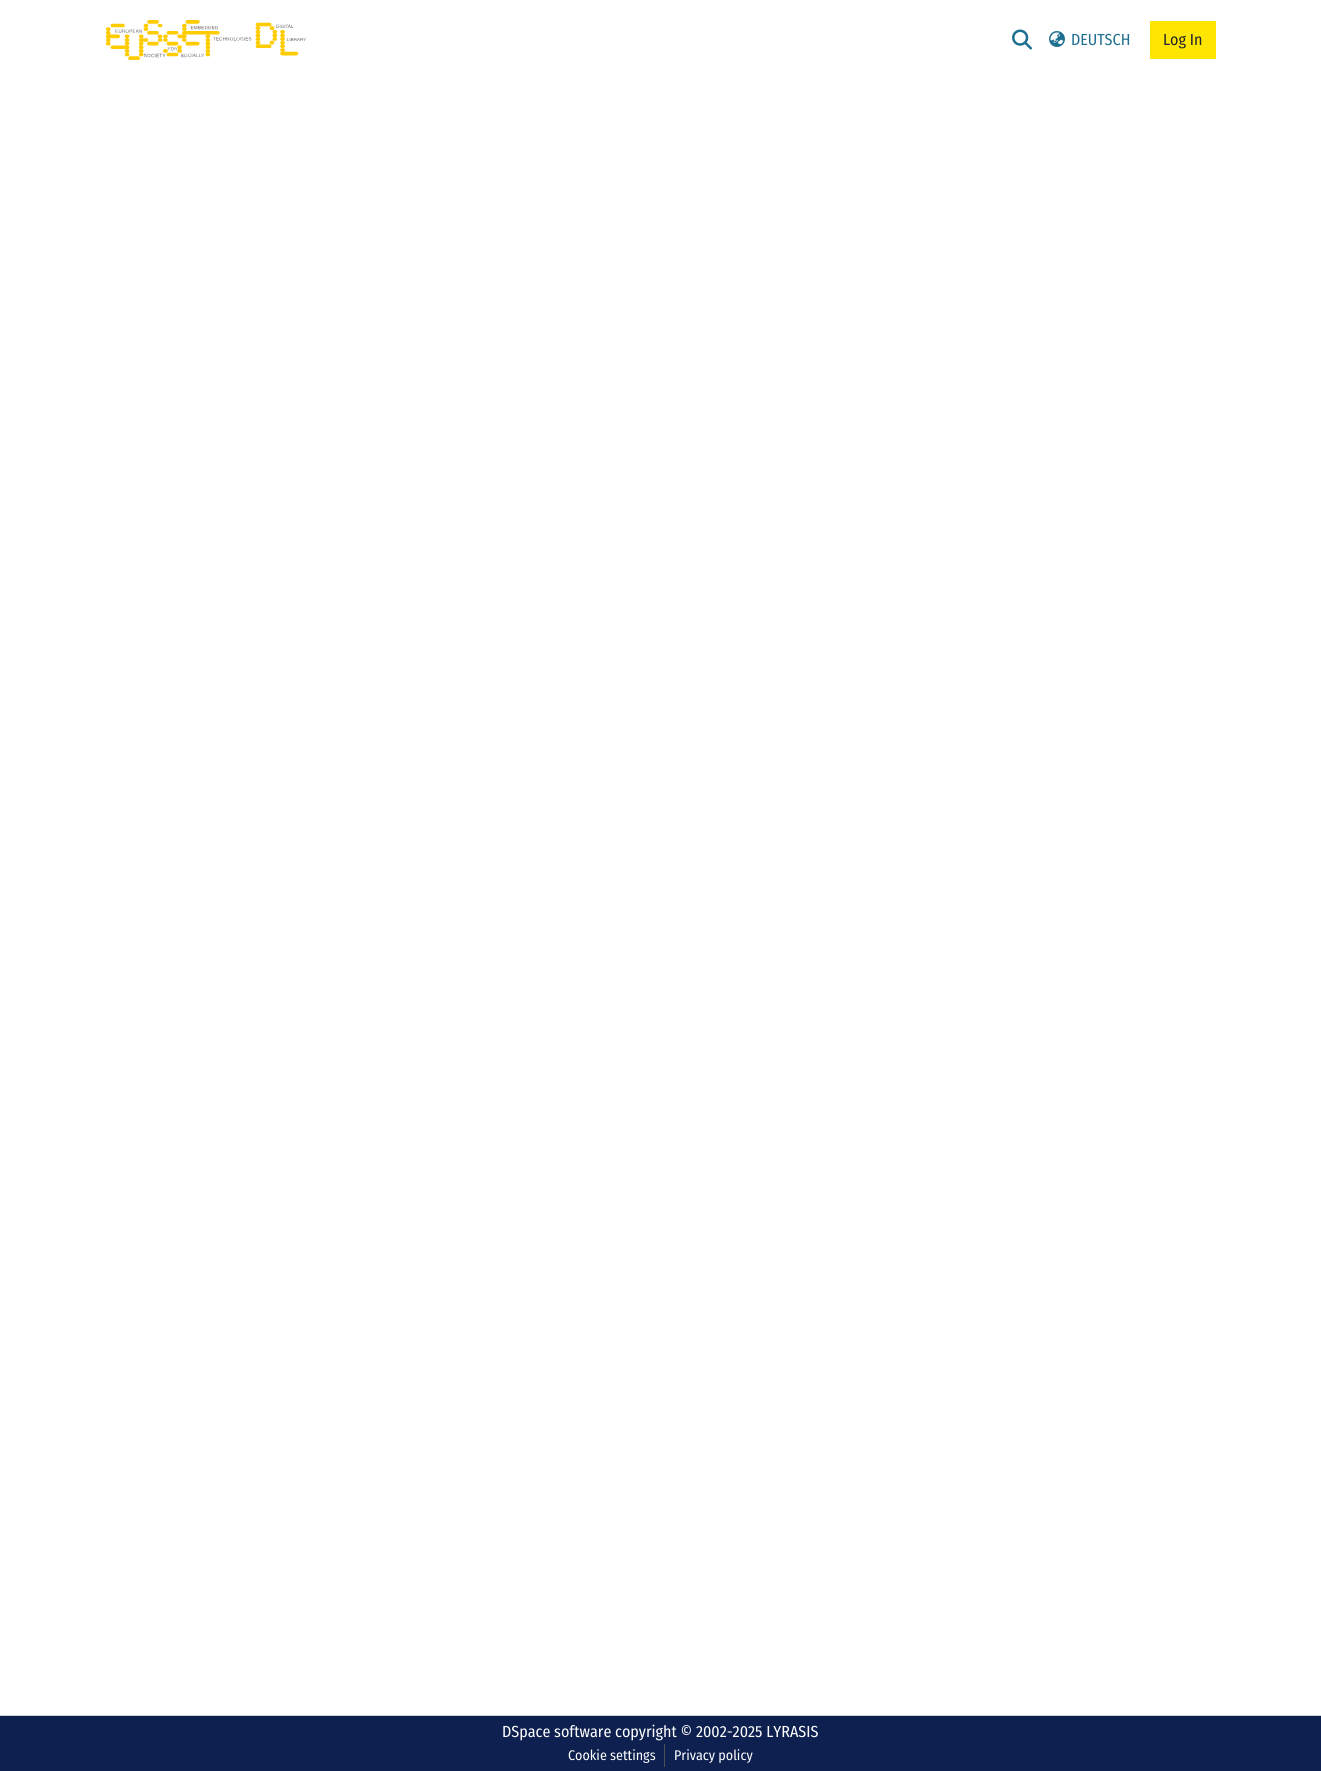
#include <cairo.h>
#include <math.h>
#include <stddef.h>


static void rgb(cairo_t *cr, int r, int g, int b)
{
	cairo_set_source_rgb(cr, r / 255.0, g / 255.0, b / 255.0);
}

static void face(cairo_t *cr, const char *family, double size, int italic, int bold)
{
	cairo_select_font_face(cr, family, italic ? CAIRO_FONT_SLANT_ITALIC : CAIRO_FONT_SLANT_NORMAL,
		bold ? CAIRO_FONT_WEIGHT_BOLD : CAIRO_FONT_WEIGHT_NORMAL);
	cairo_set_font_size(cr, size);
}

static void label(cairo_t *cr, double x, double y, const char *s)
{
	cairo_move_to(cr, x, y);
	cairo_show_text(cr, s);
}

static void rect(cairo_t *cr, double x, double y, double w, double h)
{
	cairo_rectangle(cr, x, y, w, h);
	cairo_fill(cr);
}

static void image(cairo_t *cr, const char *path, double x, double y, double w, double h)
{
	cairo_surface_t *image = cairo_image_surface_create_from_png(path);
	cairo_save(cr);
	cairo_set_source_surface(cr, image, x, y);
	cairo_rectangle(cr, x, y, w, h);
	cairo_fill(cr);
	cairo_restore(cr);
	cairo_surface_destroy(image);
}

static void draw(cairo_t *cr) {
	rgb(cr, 255, 255, 255);
	cairo_paint(cr);
	image(cr, "image0.png", 106, 20, 200, 40);
	image(cr, "image1.png", 1012, 29, 20, 21);
	image(cr, "image2.png", 1049, 31, 16, 16);
	face(cr, "Fira Sans Condensed", 16, 0, 0);
	rgb(cr, 30, 111, 144);
	label(cr, 1071, 45, "DEUTSCH");
	rgb(cr, 255, 230, 0);
	rect(cr, 1150, 21, 66, 38);
	rgb(cr, 33, 37, 41);
	label(cr, 1163, 45, "Log In");
	rgb(cr, 14, 32, 80);
	rect(cr, 0, 1716, 1321, 55);
	rgb(cr, 206, 212, 218);
	rect(cr, 0, 1715, 1321, 1);
	rgb(cr, 255, 255, 255);
	label(cr, 502, 1737, "DSpace software copyright © 2002-2025 LYRASIS");
	face(cr, "Fira Sans Condensed", 14, 0, 0);
	label(cr, 568, 1760, "Cookie settings");
	rgb(cr, 73, 80, 87);
	rect(cr, 664, 1744, 1, 23);
	rgb(cr, 255, 255, 255);
	label(cr, 674, 1760, "Privacy policy");
}

int main(void) {
	cairo_surface_t *surface = cairo_image_surface_create(CAIRO_FORMAT_RGB24, 1321, 1771);
	cairo_t *cr = cairo_create(surface);
	cairo_font_options_t *options = cairo_font_options_create();
	cairo_font_options_set_hint_metrics(options, CAIRO_HINT_METRICS_OFF);
	cairo_font_options_set_hint_style(options, CAIRO_HINT_STYLE_NONE);
	cairo_set_font_options(cr, options);
	cairo_set_miter_limit(cr, 4);
	draw(cr);
	cairo_surface_write_to_png(surface, "render.png");
	cairo_font_options_destroy(options);
	cairo_destroy(cr);
	cairo_surface_destroy(surface);
	return 0;
}
